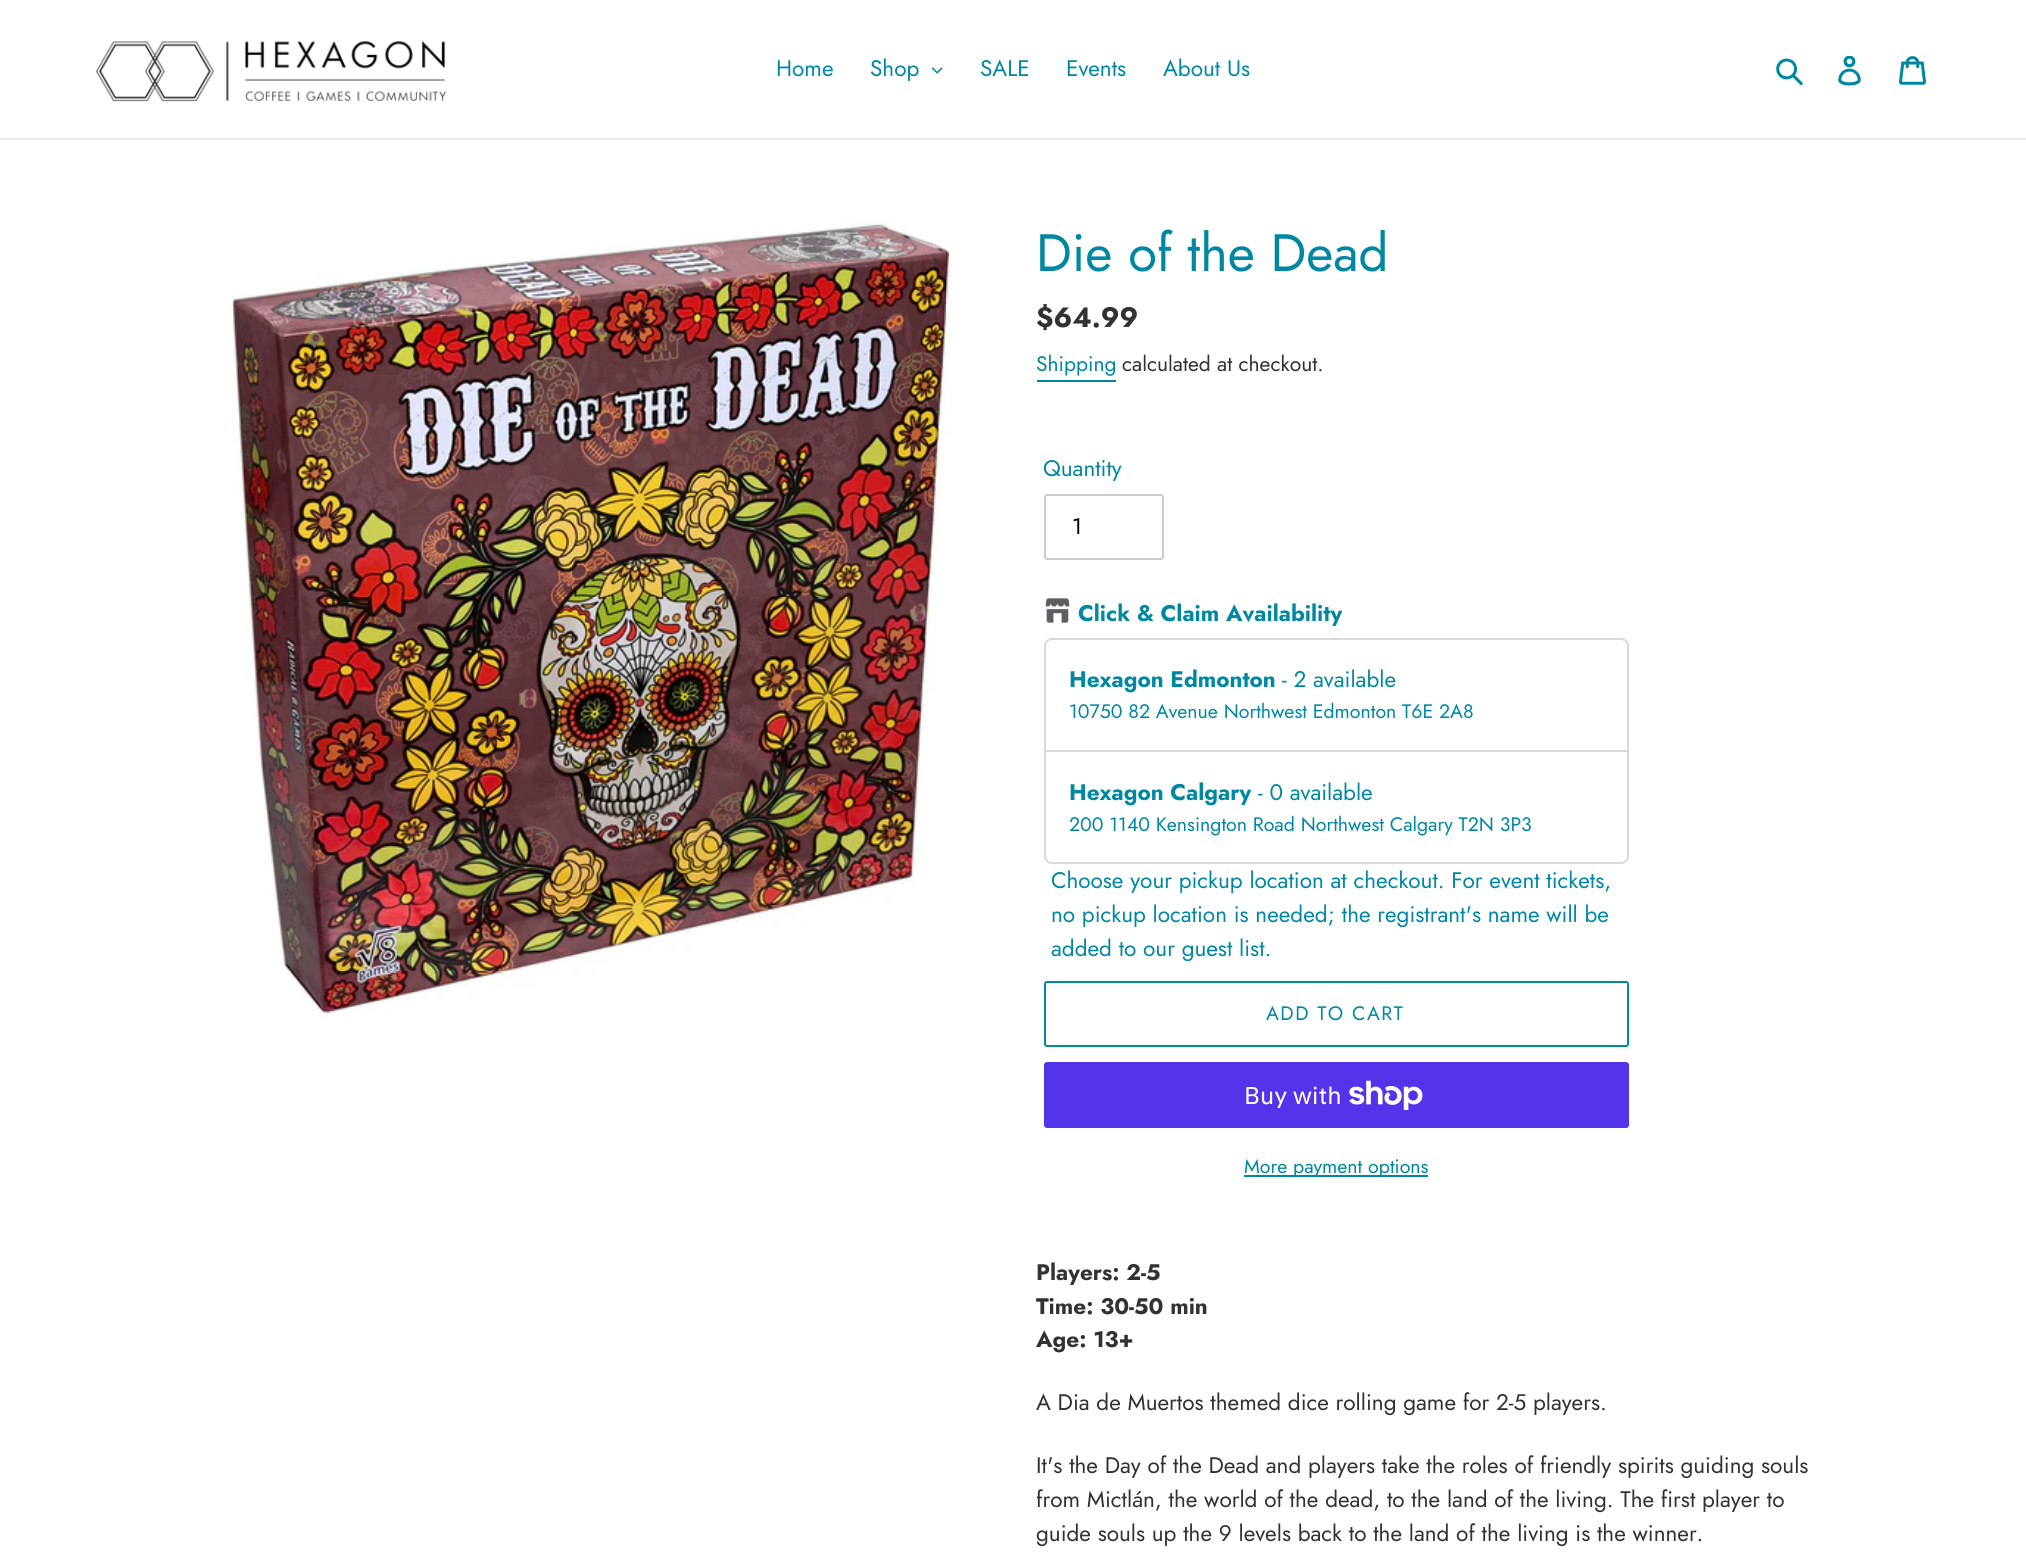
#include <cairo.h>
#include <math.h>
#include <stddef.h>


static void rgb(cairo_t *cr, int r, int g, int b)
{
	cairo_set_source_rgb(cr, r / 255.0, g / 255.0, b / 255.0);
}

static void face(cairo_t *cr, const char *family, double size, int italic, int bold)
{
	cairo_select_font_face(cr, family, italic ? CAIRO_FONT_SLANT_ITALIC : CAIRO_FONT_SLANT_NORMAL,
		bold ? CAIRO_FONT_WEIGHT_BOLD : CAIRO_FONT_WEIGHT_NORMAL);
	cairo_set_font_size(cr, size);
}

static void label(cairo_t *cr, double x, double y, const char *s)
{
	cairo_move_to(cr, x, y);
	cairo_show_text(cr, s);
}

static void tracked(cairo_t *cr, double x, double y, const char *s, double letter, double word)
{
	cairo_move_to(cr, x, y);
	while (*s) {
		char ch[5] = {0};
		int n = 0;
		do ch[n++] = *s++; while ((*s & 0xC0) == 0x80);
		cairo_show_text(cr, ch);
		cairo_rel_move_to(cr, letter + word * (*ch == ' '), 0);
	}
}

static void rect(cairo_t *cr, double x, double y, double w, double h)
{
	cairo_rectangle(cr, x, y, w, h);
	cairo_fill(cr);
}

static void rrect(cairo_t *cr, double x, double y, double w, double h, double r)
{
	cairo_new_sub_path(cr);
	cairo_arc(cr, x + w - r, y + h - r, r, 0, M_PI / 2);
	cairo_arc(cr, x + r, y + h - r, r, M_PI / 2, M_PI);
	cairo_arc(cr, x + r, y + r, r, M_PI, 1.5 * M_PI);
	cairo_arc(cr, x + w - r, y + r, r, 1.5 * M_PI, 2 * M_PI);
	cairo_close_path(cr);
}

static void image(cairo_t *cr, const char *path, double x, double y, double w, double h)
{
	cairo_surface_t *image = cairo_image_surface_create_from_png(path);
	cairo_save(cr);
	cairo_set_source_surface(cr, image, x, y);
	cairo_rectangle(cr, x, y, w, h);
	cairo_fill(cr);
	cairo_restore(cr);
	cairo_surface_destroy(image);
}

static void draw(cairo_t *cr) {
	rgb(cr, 255, 255, 255);
	cairo_paint(cr);
	rgb(cr, 235, 235, 235);
	rect(cr, 0, 138, 2026, 2);
	image(cr, "image0.png", 96, 41, 350, 61);
	face(cr, "Jost", 22.5, 0, 0);
	rgb(cr, 0, 136, 162);
	label(cr, 776, 76, "Home");
	label(cr, 870, 76, "Shop");
	image(cr, "image1.png", 932, 67, 11, 7);
	label(cr, 980, 76, "SALE");
	label(cr, 1066, 76, "Events");
	label(cr, 1163, 76, "About Us");
	image(cr, "image2.png", 1776, 58, 27, 28);
	image(cr, "image3.png", 1838, 56, 23, 30);
	image(cr, "image4.png", 1899, 56, 27, 29);
	image(cr, "image5.png", 231, 222, 721, 795);
	face(cr, "Jost", 52.5, 0, 0);
	label(cr, 1036, 271, "Die of the Dead");
	face(cr, "Jost", 28, 0, 1);
	rgb(cr, 51, 50, 50);
	label(cr, 1036, 327, "$64.99");
	face(cr, "Jost", 21, 0, 0);
	rgb(cr, 0, 136, 162);
	label(cr, 1036, 371, "Shipping");
	rect(cr, 1037, 380, 79, 2);
	rgb(cr, 51, 50, 50);
	label(cr, 1122, 371, "calculated at checkout.");
	face(cr, "Jost", 22.5, 0, 0);
	rgb(cr, 0, 136, 162);
	label(cr, 1043, 476, "Quantity");
	rrect(cr, 1045, 495, 118, 64, 2);
	rgb(cr, 204, 204, 204);
	cairo_stroke(cr);
	rgb(cr, 0, 0, 0);
	label(cr, 1072, 534, "1");
	image(cr, "image6.png", 1045, 598, 25, 25);
	face(cr, "Jost", 22.5, 0, 1);
	rgb(cr, 0, 136, 162);
	label(cr, 1078, 621, "Click & Claim Availability");
	rrect(cr, 1045, 639, 583, 224, 7);
	rgb(cr, 217, 217, 217);
	cairo_stroke(cr);
	rgb(cr, 0, 136, 162);
	label(cr, 1069, 687, "Hexagon Edmonton");
	face(cr, "Jost", 22.5, 0, 0);
	label(cr, 1282, 687, "- 2 available");
	face(cr, "Jost", 19.5, 0, 0);
	label(cr, 1069, 718, "10750 82 Avenue Northwest Edmonton T6E 2A8");
	rgb(cr, 217, 217, 217);
	rect(cr, 1046, 750, 582, 2);
	face(cr, "Jost", 22.5, 0, 1);
	rgb(cr, 0, 136, 162);
	label(cr, 1069, 800, "Hexagon Calgary");
	face(cr, "Jost", 22.5, 0, 0);
	label(cr, 1258, 800, "- 0 available");
	face(cr, "Jost", 19.5, 0, 0);
	label(cr, 1069, 831, "200 1140 Kensington Road Northwest Calgary T2N 3P3");
	face(cr, "Jost", 22.5, 0, 0);
	label(cr, 1051, 888, "Choose your pickup location at checkout. For event tickets,");
	label(cr, 1051, 922, "no pickup location is needed; the registrant's name will be");
	label(cr, 1051, 956, "added to our guest list.");
	rrect(cr, 1045, 982, 583, 64, 2);
	cairo_stroke(cr);
	face(cr, "Jost", 19.5, 0, 0);
	tracked(cr, 1266, 1020, "ADD TO CART", 1.5, 0);
	rgb(cr, 84, 51, 235);
	rrect(cr, 1044, 1062, 585, 66, 3);
	cairo_fill(cr);
	face(cr, "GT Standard", 24, 0, 0);
	rgb(cr, 255, 255, 255);
	label(cr, 1244, 1104, "Buy with");
	image(cr, "image7.png", 1349, 1080, 74, 30);
	rgb(cr, 0, 136, 162);
	rect(cr, 1244, 1175, 184, 2);
	face(cr, "Jost", 19.5, 0, 0);
	label(cr, 1244, 1173, "More payment options");
	face(cr, "Jost", 22.5, 0, 1);
	rgb(cr, 51, 50, 50);
	label(cr, 1036, 1280, "Players: 2-5");
	label(cr, 1036, 1314, "Time: 30-50 min");
	label(cr, 1036, 1347, "Age: 13+");
	face(cr, "Jost", 22.5, 0, 0);
	label(cr, 1036, 1410, "A Dia de Muertos themed dice rolling game for 2-5 players.");
	label(cr, 1036, 1473, "It's the Day of the Dead and players take the roles of friendly spirits guiding souls");
	label(cr, 1036, 1507, "from Mictlán, the world of the dead, to the land of the living. The first player to");
	label(cr, 1036, 1541, "guide souls up the 9 levels back to the land of the living is the winner.");
}

int main(void) {
	cairo_surface_t *surface = cairo_image_surface_create(CAIRO_FORMAT_RGB24, 2026, 1566);
	cairo_t *cr = cairo_create(surface);
	cairo_font_options_t *options = cairo_font_options_create();
	cairo_font_options_set_hint_metrics(options, CAIRO_HINT_METRICS_OFF);
	cairo_font_options_set_hint_style(options, CAIRO_HINT_STYLE_NONE);
	cairo_set_font_options(cr, options);
	cairo_set_miter_limit(cr, 4);
	draw(cr);
	cairo_surface_write_to_png(surface, "render.png");
	cairo_font_options_destroy(options);
	cairo_destroy(cr);
	cairo_surface_destroy(surface);
	return 0;
}
